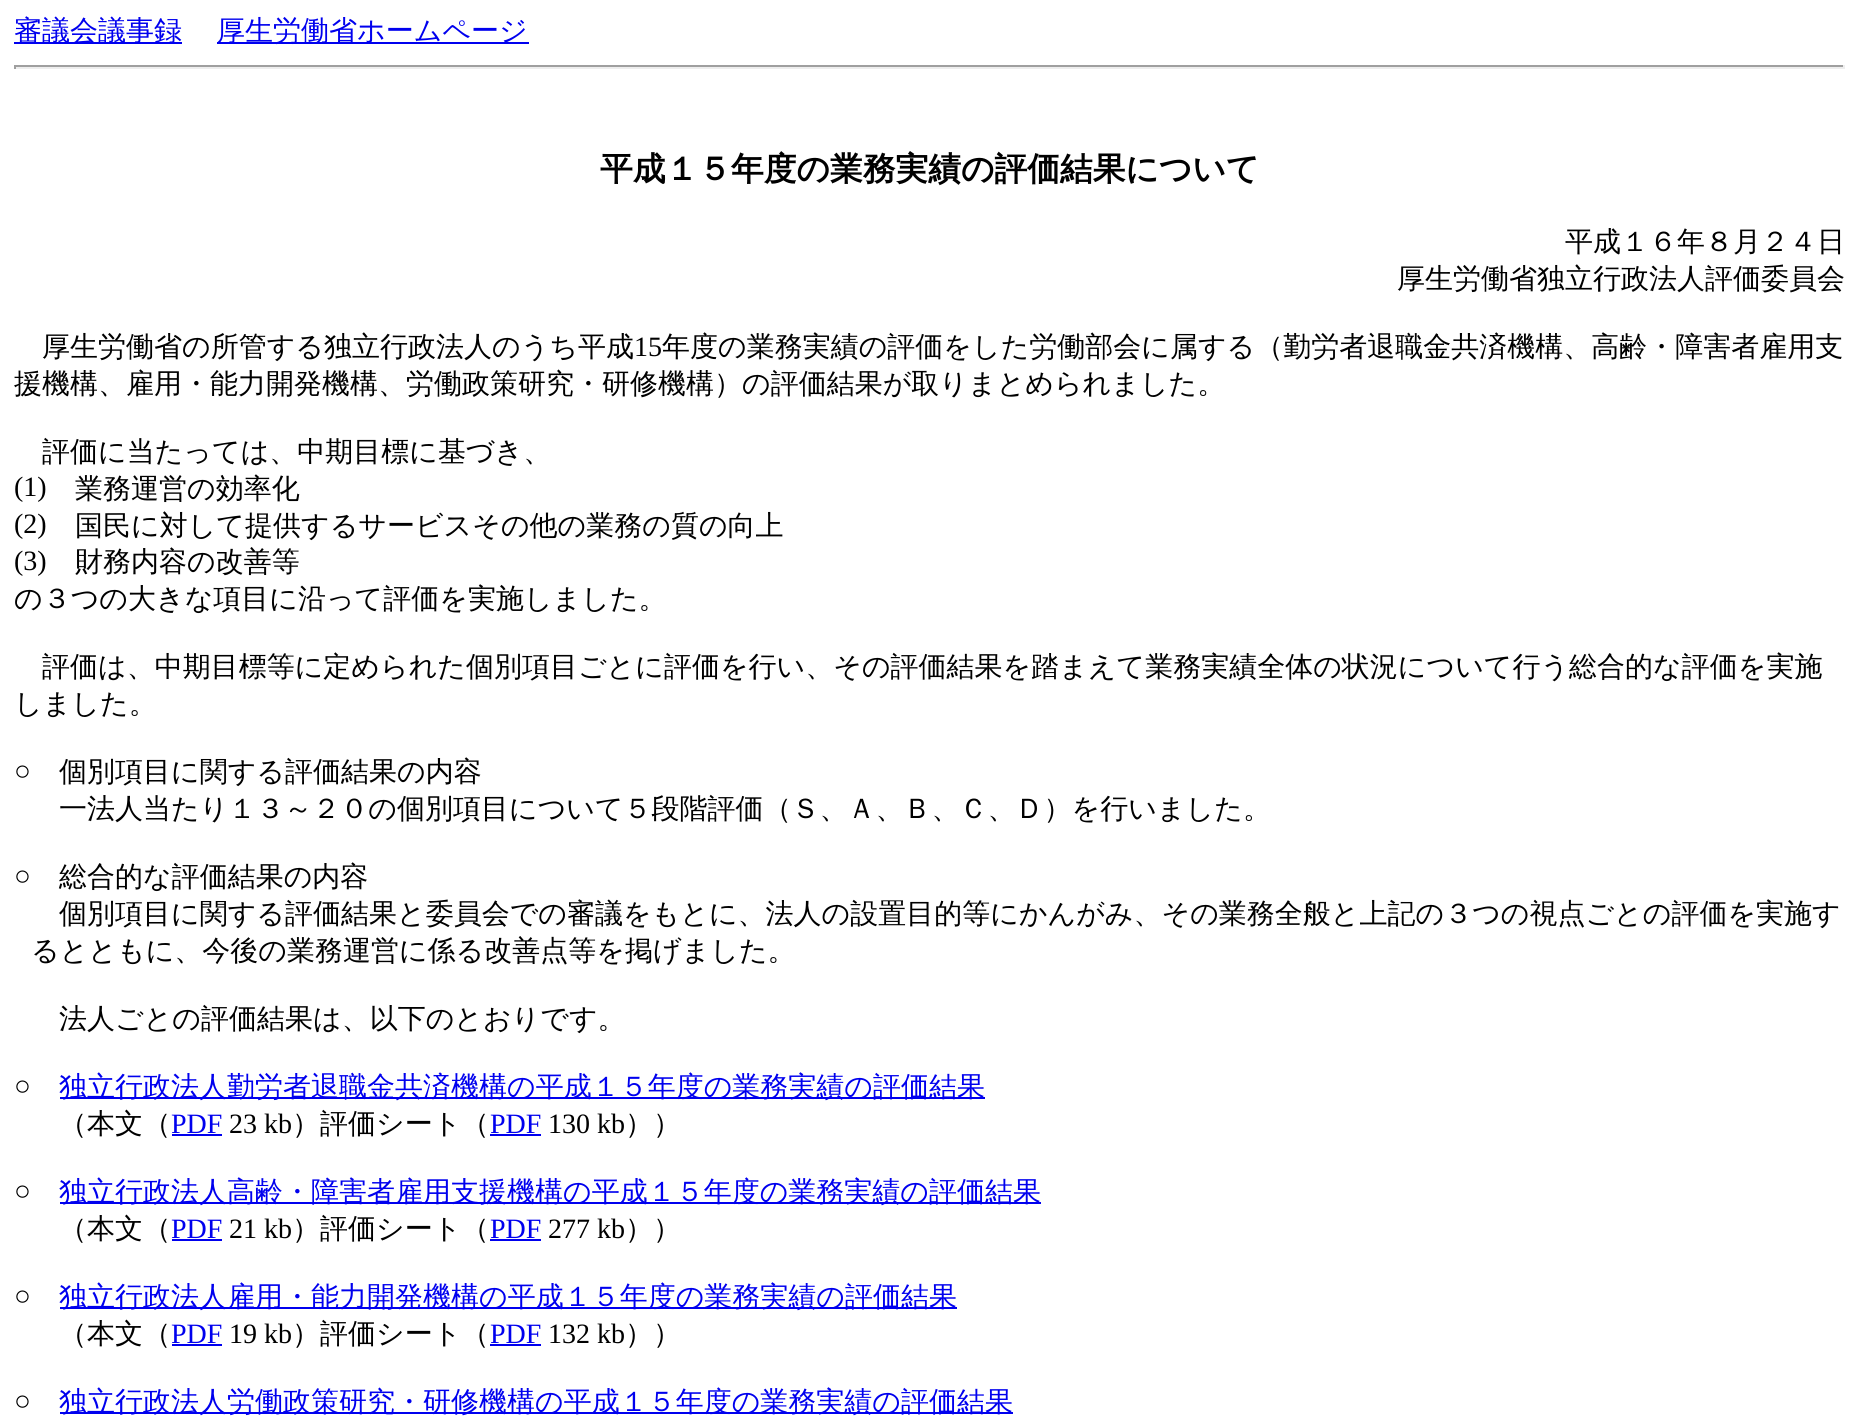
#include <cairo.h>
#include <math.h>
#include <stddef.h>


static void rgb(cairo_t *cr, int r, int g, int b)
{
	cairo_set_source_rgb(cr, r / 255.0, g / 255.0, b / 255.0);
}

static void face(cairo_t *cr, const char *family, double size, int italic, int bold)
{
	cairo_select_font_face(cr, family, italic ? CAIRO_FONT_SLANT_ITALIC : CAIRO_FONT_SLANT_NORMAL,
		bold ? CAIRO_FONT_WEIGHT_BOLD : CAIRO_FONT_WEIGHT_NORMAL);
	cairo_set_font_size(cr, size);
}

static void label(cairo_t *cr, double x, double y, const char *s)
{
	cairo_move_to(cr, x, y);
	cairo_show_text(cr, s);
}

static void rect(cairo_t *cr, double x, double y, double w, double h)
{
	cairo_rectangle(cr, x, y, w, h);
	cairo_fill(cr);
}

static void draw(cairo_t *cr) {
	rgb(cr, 255, 255, 255);
	cairo_paint(cr);
	rgb(cr, 0, 0, 238);
	rect(cr, 14, 42, 168, 2);
	face(cr, "WenQuanYi Zen Hei Medium", 28, 0, 0);
	label(cr, 14, 40, "審議会議事録");
	rect(cr, 217, 42, 312, 2);
	label(cr, 217, 40, "厚生労働省ホームページ");
	rgb(cr, 159, 159, 159);
	rect(cr, 14, 65, 1831, 2);
	rgb(cr, 238, 238, 238);
	rect(cr, 1843, 65, 2, 4);
	rect(cr, 14, 67, 1831, 2);
	rgb(cr, 159, 159, 159);
	rect(cr, 14, 65, 2, 4);
	face(cr, "WenQuanYi Zen Hei", 32.75, 0, 1);
	rgb(cr, 0, 0, 0);
	label(cr, 600, 180, "平成１５年度の業務実績の評価結果について");
	face(cr, "WenQuanYi Zen Hei Medium", 28, 0, 0);
	label(cr, 1565, 251, "平成１６年８月２４日");
	label(cr, 1397, 288, "厚生労働省独立行政法人評価委員会");
	label(cr, 42, 356, "厚生労働省の所管する独立行政法人のうち平成");
	face(cr, "Liberation Serif", 28, 0, 0);
	label(cr, 634, 356, "15");
	face(cr, "WenQuanYi Zen Hei Medium", 28, 0, 0);
	label(cr, 662, 356, "年度の業務実績の評価をした労働部会に属する（勤労者退職金共済機構、高齢・障害者雇用支");
	label(cr, 14, 393, "援機構、雇用・能力開発機構、労働政策研究・研修機構）の評価結果が取りまとめられました。");
	label(cr, 42, 461, "評価に当たっては、中期目標に基づき、");
	face(cr, "Liberation Serif", 28, 0, 0);
	label(cr, 14, 496, "(1)");
	face(cr, "WenQuanYi Zen Hei Medium", 28, 0, 0);
	label(cr, 75, 498, "業務運営の効率化");
	face(cr, "Liberation Serif", 28, 0, 0);
	label(cr, 14, 533, "(2)");
	face(cr, "WenQuanYi Zen Hei Medium", 28, 0, 0);
	label(cr, 75, 535, "国民に対して提供するサービスその他の業務の質の向上");
	face(cr, "Liberation Serif", 28, 0, 0);
	label(cr, 14, 570, "(3)");
	face(cr, "WenQuanYi Zen Hei Medium", 28, 0, 0);
	label(cr, 75, 571, "財務内容の改善等");
	label(cr, 14, 608, "の３つの大きな項目に沿って評価を実施しました。");
	label(cr, 42, 676, "評価は、中期目標等に定められた個別項目ごとに評価を行い、その評価結果を踏まえて業務実績全体の状況について行う総合的な評価を実施");
	label(cr, 14, 713, "しました。");
	face(cr, "Liberation Serif", 28, 0, 0);
	label(cr, 14, 780, "○");
	face(cr, "WenQuanYi Zen Hei Medium", 28, 0, 0);
	label(cr, 59, 781, "個別項目に関する評価結果の内容");
	label(cr, 59, 818, "一法人当たり１３～２０の個別項目について５段階評価（Ｓ、Ａ、Ｂ、Ｃ、Ｄ）を行いました。");
	face(cr, "Liberation Serif", 28, 0, 0);
	label(cr, 14, 885, "○");
	face(cr, "WenQuanYi Zen Hei Medium", 28, 0, 0);
	label(cr, 59, 886, "総合的な評価結果の内容");
	label(cr, 59, 923, "個別項目に関する評価結果と委員会での審議をもとに、法人の設置目的等にかんがみ、その業務全般と上記の３つの視点ごとの評価を実施す");
	label(cr, 31, 960, "るとともに、今後の業務運営に係る改善点等を掲げました。");
	label(cr, 59, 1028, "法人ごとの評価結果は、以下のとおりです。");
	face(cr, "Liberation Serif", 28, 0, 0);
	label(cr, 14, 1095, "○");
	rgb(cr, 0, 0, 238);
	rect(cr, 60, 1097, 925, 2);
	face(cr, "WenQuanYi Zen Hei Medium", 28, 0, 0);
	label(cr, 59, 1096, "独立行政法人勤労者退職金共済機構の平成１５年度の業務実績の評価結果");
	rgb(cr, 0, 0, 0);
	label(cr, 59, 1133, "（本文（");
	face(cr, "Liberation Serif", 28, 0, 0);
	rgb(cr, 0, 0, 238);
	label(cr, 171, 1133, "PDF");
	rect(cr, 172, 1134, 50, 2);
	rgb(cr, 0, 0, 0);
	label(cr, 229, 1133, "23 kb");
	face(cr, "WenQuanYi Zen Hei Medium", 28, 0, 0);
	label(cr, 292, 1133, "）評価シート（");
	face(cr, "Liberation Serif", 28, 0, 0);
	rgb(cr, 0, 0, 238);
	label(cr, 490, 1133, "PDF");
	rect(cr, 490, 1134, 51, 2);
	rgb(cr, 0, 0, 0);
	label(cr, 548, 1133, "130 kb");
	face(cr, "WenQuanYi Zen Hei Medium", 28, 0, 0);
	label(cr, 625, 1133, "））");
	face(cr, "Liberation Serif", 28, 0, 0);
	label(cr, 14, 1200, "○");
	rgb(cr, 0, 0, 238);
	rect(cr, 60, 1202, 981, 2);
	face(cr, "WenQuanYi Zen Hei Medium", 28, 0, 0);
	label(cr, 59, 1201, "独立行政法人高齢・障害者雇用支援機構の平成１５年度の業務実績の評価結果");
	rgb(cr, 0, 0, 0);
	label(cr, 59, 1238, "（本文（");
	face(cr, "Liberation Serif", 28, 0, 0);
	rgb(cr, 0, 0, 238);
	label(cr, 171, 1238, "PDF");
	rect(cr, 172, 1239, 50, 2);
	rgb(cr, 0, 0, 0);
	label(cr, 229, 1238, "21 kb");
	face(cr, "WenQuanYi Zen Hei Medium", 28, 0, 0);
	label(cr, 292, 1238, "）評価シート（");
	face(cr, "Liberation Serif", 28, 0, 0);
	rgb(cr, 0, 0, 238);
	label(cr, 490, 1238, "PDF");
	rect(cr, 490, 1239, 51, 2);
	rgb(cr, 0, 0, 0);
	label(cr, 548, 1238, "277 kb");
	face(cr, "WenQuanYi Zen Hei Medium", 28, 0, 0);
	label(cr, 625, 1238, "））");
	face(cr, "Liberation Serif", 28, 0, 0);
	label(cr, 14, 1305, "○");
	rgb(cr, 0, 0, 238);
	rect(cr, 60, 1307, 897, 2);
	face(cr, "WenQuanYi Zen Hei Medium", 28, 0, 0);
	label(cr, 59, 1306, "独立行政法人雇用・能力開発機構の平成１５年度の業務実績の評価結果");
	rgb(cr, 0, 0, 0);
	label(cr, 59, 1343, "（本文（");
	face(cr, "Liberation Serif", 28, 0, 0);
	rgb(cr, 0, 0, 238);
	label(cr, 171, 1343, "PDF");
	rect(cr, 172, 1344, 50, 2);
	rgb(cr, 0, 0, 0);
	label(cr, 229, 1343, "19 kb");
	face(cr, "WenQuanYi Zen Hei Medium", 28, 0, 0);
	label(cr, 292, 1343, "）評価シート（");
	face(cr, "Liberation Serif", 28, 0, 0);
	rgb(cr, 0, 0, 238);
	label(cr, 490, 1343, "PDF");
	rect(cr, 490, 1344, 51, 2);
	rgb(cr, 0, 0, 0);
	label(cr, 548, 1343, "132 kb");
	face(cr, "WenQuanYi Zen Hei Medium", 28, 0, 0);
	label(cr, 625, 1343, "））");
	face(cr, "Liberation Serif", 28, 0, 0);
	label(cr, 14, 1410, "○");
	rgb(cr, 0, 0, 238);
	rect(cr, 60, 1412, 953, 2);
	face(cr, "WenQuanYi Zen Hei Medium", 28, 0, 0);
	label(cr, 59, 1411, "独立行政法人労働政策研究・研修機構の平成１５年度の業務実績の評価結果");
}

int main(void) {
	cairo_surface_t *surface = cairo_image_surface_create(CAIRO_FORMAT_RGB24, 1858, 1425);
	cairo_t *cr = cairo_create(surface);
	cairo_font_options_t *options = cairo_font_options_create();
	cairo_font_options_set_hint_metrics(options, CAIRO_HINT_METRICS_OFF);
	cairo_font_options_set_hint_style(options, CAIRO_HINT_STYLE_NONE);
	cairo_set_font_options(cr, options);
	cairo_set_miter_limit(cr, 4);
	draw(cr);
	cairo_surface_write_to_png(surface, "render.png");
	cairo_font_options_destroy(options);
	cairo_destroy(cr);
	cairo_surface_destroy(surface);
	return 0;
}
